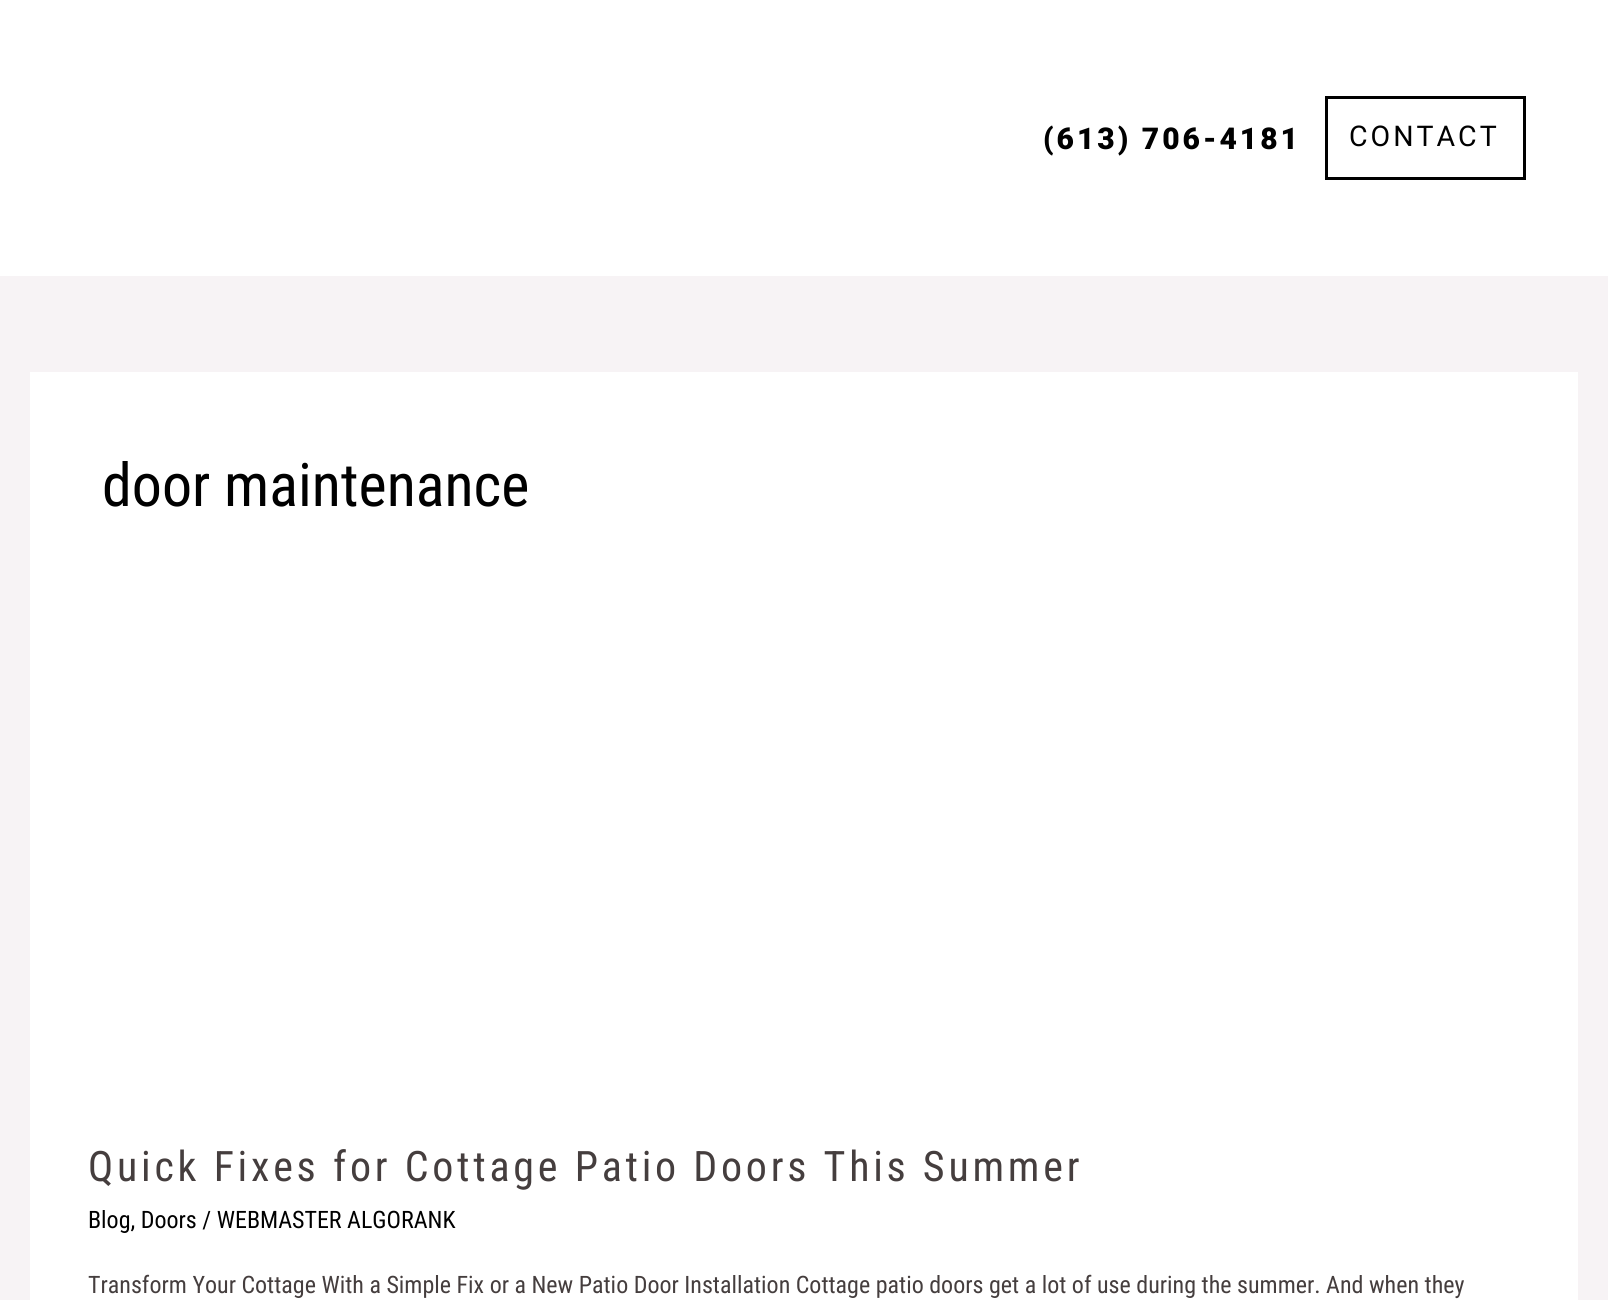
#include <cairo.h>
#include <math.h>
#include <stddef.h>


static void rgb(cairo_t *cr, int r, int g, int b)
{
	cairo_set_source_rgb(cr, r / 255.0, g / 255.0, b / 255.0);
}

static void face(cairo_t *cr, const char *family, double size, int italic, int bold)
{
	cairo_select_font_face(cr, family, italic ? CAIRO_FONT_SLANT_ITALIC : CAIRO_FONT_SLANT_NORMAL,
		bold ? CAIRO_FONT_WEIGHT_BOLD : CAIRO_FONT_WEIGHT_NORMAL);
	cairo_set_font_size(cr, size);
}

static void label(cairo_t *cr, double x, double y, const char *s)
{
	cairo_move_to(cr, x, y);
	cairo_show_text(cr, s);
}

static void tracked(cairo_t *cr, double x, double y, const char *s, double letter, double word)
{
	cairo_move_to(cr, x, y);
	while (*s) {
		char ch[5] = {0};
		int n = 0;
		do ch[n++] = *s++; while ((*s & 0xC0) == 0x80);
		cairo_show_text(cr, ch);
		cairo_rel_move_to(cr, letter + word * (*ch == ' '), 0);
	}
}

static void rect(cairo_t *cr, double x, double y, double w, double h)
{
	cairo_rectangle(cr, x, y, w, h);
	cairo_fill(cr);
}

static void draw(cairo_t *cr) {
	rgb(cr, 247, 243, 245);
	cairo_paint(cr);
	rgb(cr, 255, 255, 255);
	rect(cr, 0, 0, 1608, 276);
	face(cr, "Roboto Black", 30, 0, 0);
	rgb(cr, 0, 0, 0);
	tracked(cr, 1043, 149, "(613) 706-4181", 3, 0);
	cairo_rectangle(cr, 1326.5, 97.5, 198, 81);
	cairo_set_line_width(cr, 3);
	cairo_stroke(cr);
	face(cr, "Roboto", 28.5, 0, 0);
	tracked(cr, 1349, 146, "CONTACT", 3, 0);
	rgb(cr, 255, 255, 255);
	rect(cr, 30, 372, 1548, 928);
	face(cr, "Roboto Condensed", 60, 0, 0);
	rgb(cr, 0, 0, 0);
	label(cr, 102, 506, "door maintenance");
	face(cr, "Roboto Condensed", 42, 0, 0);
	rgb(cr, 69, 62, 62);
	tracked(cr, 88, 1181, "Quick Fixes for Cottage Patio Doors This Summer", 3.75, 0);
	face(cr, "Roboto Condensed", 24, 0, 0);
	rgb(cr, 0, 0, 0);
	label(cr, 88, 1228, "Blog, Doors / WEBMASTER ALGORANK");
	rgb(cr, 69, 62, 62);
	label(cr, 88, 1293, "Transform Your Cottage With a Simple Fix or a New Patio Door Installation Cottage patio doors get a lot of use during the summer. And when they");
}

int main(void) {
	cairo_surface_t *surface = cairo_image_surface_create(CAIRO_FORMAT_RGB24, 1608, 1300);
	cairo_t *cr = cairo_create(surface);
	cairo_font_options_t *options = cairo_font_options_create();
	cairo_font_options_set_hint_metrics(options, CAIRO_HINT_METRICS_OFF);
	cairo_font_options_set_hint_style(options, CAIRO_HINT_STYLE_NONE);
	cairo_set_font_options(cr, options);
	cairo_set_miter_limit(cr, 4);
	draw(cr);
	cairo_surface_write_to_png(surface, "render.png");
	cairo_font_options_destroy(options);
	cairo_destroy(cr);
	cairo_surface_destroy(surface);
	return 0;
}
